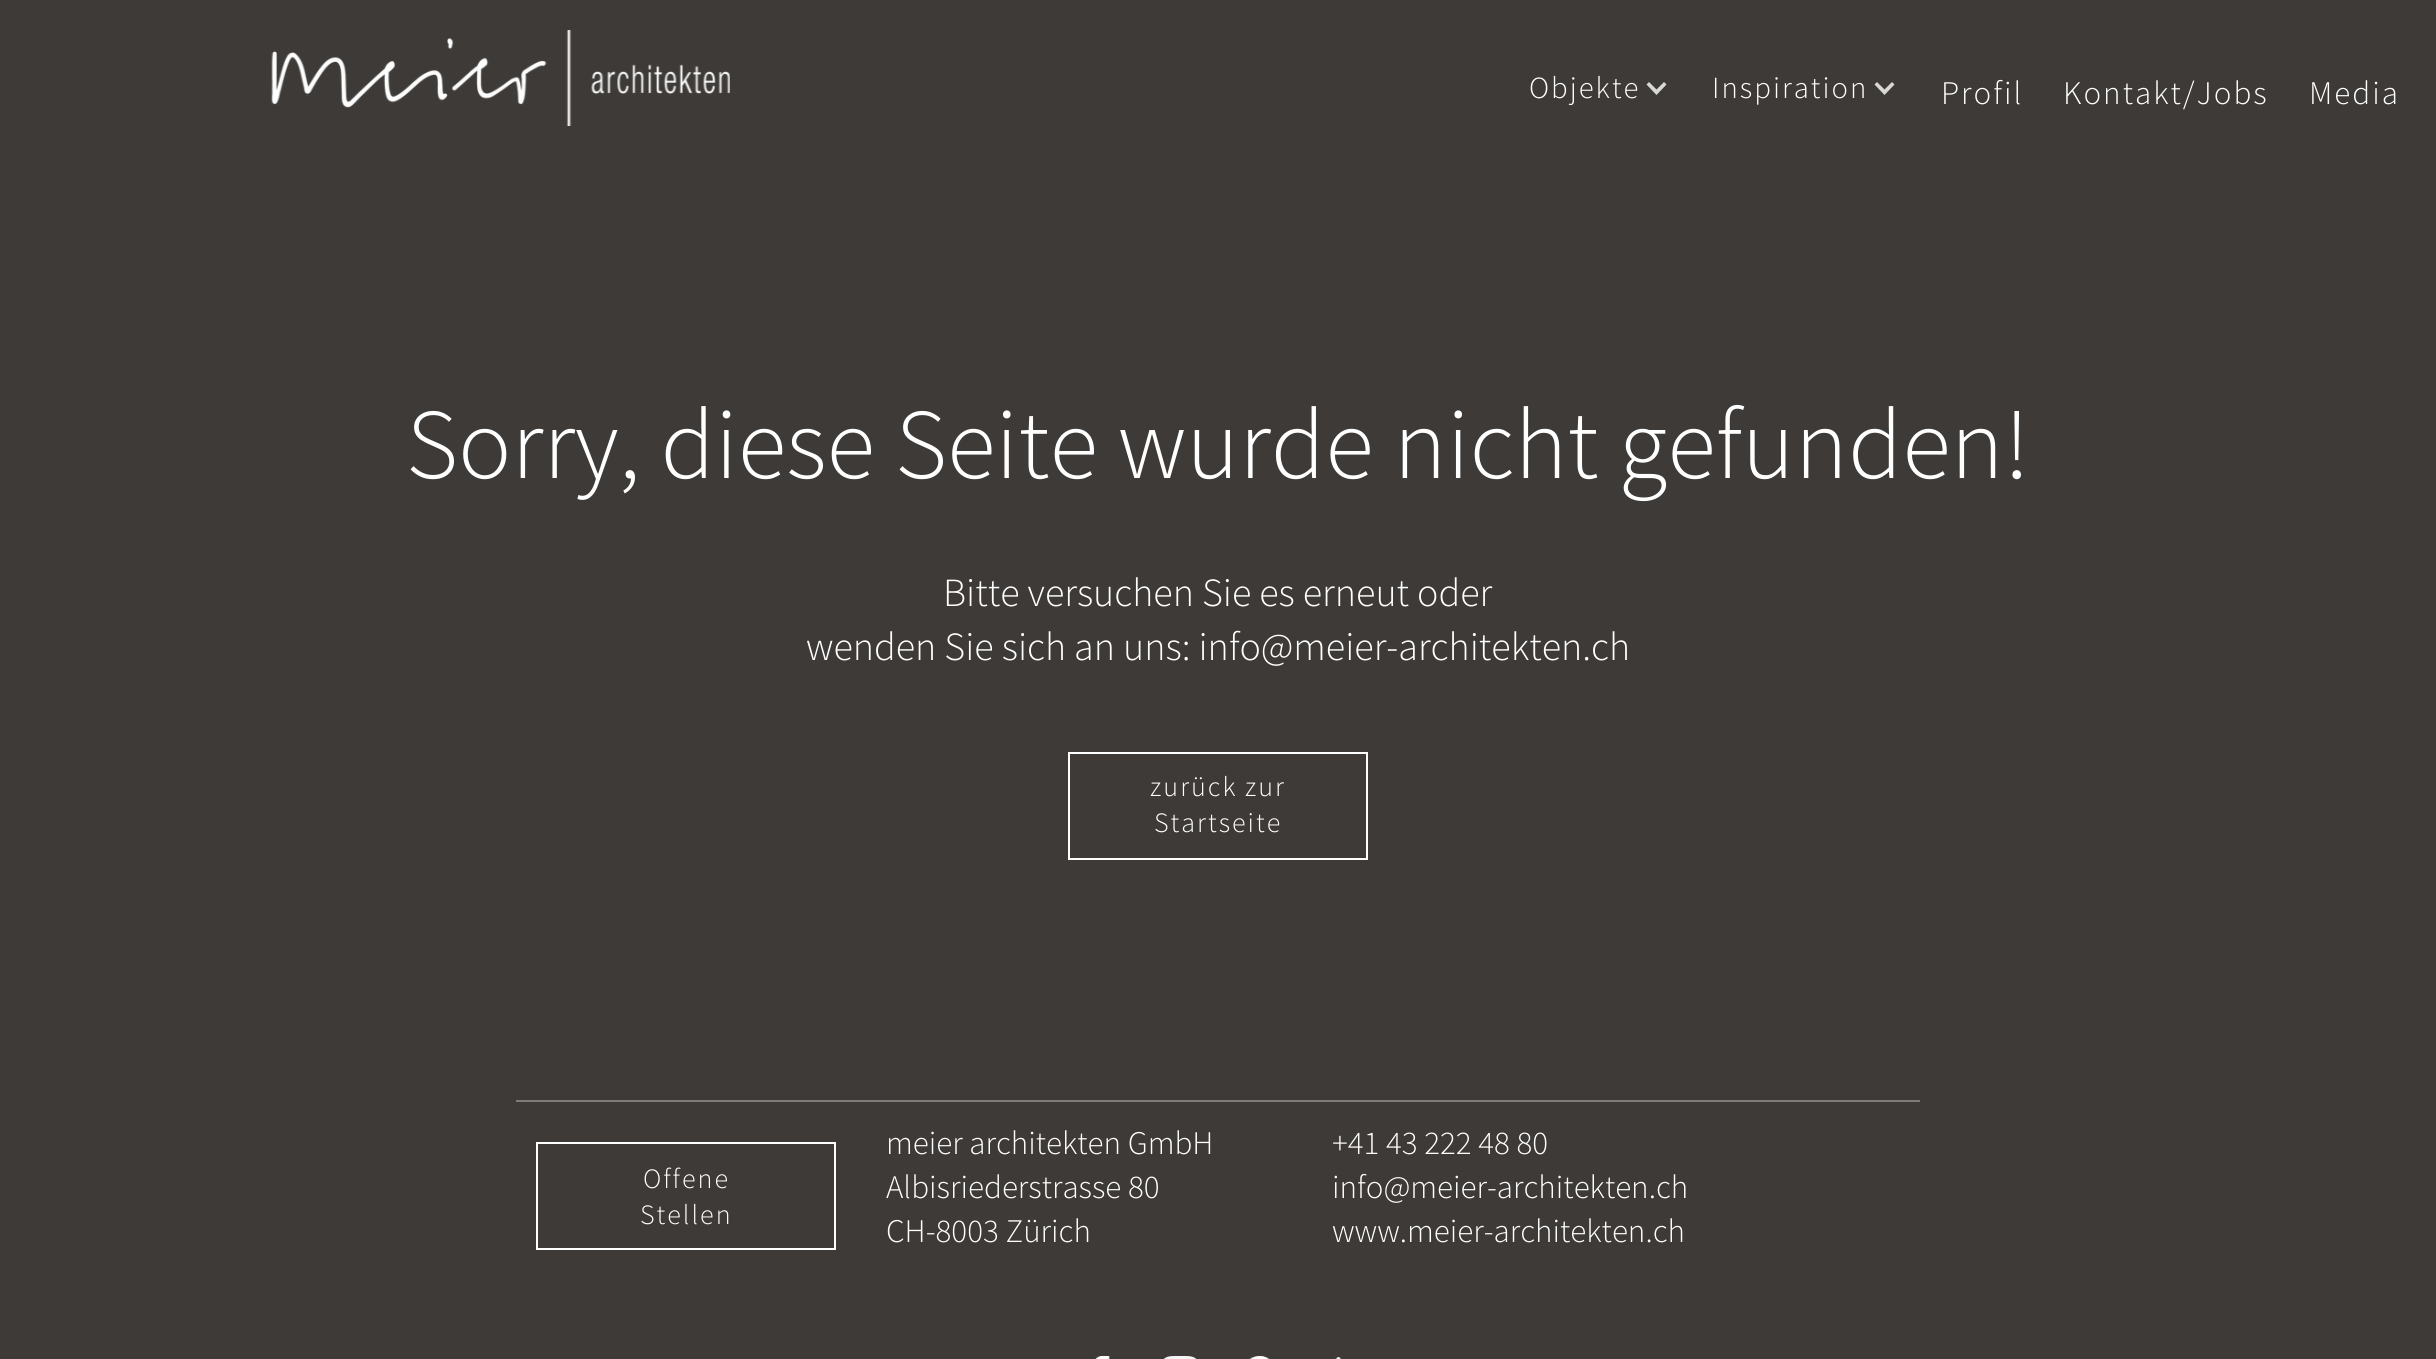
#include <cairo.h>
#include <math.h>
#include <stddef.h>


static void rgb(cairo_t *cr, int r, int g, int b)
{
	cairo_set_source_rgb(cr, r / 255.0, g / 255.0, b / 255.0);
}

static void face(cairo_t *cr, const char *family, double size, int italic, int bold)
{
	cairo_select_font_face(cr, family, italic ? CAIRO_FONT_SLANT_ITALIC : CAIRO_FONT_SLANT_NORMAL,
		bold ? CAIRO_FONT_WEIGHT_BOLD : CAIRO_FONT_WEIGHT_NORMAL);
	cairo_set_font_size(cr, size);
}

static void label(cairo_t *cr, double x, double y, const char *s)
{
	cairo_move_to(cr, x, y);
	cairo_show_text(cr, s);
}

static void tracked(cairo_t *cr, double x, double y, const char *s, double letter, double word)
{
	cairo_move_to(cr, x, y);
	while (*s) {
		char ch[5] = {0};
		int n = 0;
		do ch[n++] = *s++; while ((*s & 0xC0) == 0x80);
		cairo_show_text(cr, ch);
		cairo_rel_move_to(cr, letter + word * (*ch == ' '), 0);
	}
}

static void rect(cairo_t *cr, double x, double y, double w, double h)
{
	cairo_rectangle(cr, x, y, w, h);
	cairo_fill(cr);
}

static void image(cairo_t *cr, const char *path, double x, double y, double w, double h)
{
	cairo_surface_t *image = cairo_image_surface_create_from_png(path);
	cairo_save(cr);
	cairo_set_source_surface(cr, image, x, y);
	cairo_rectangle(cr, x, y, w, h);
	cairo_fill(cr);
	cairo_restore(cr);
	cairo_surface_destroy(image);
}

static void draw(cairo_t *cr) {
	rgb(cr, 61, 58, 55);
	cairo_paint(cr);
	image(cr, "image0.png", 271, 30, 459, 96);
	face(cr, "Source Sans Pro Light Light", 30.75, 0, 0);
	rgb(cr, 255, 255, 255);
	tracked(cr, 1529, 98, "Objekte", 2, 0);
	rgb(cr, 216, 216, 215);
	cairo_new_path(cr);
	cairo_move_to(cr, 1664, 82);
	cairo_line_to(cr, 1656.5, 89.5);
	cairo_line_to(cr, 1649, 82);
	cairo_line_to(cr, 1646.5, 84.5);
	cairo_line_to(cr, 1656.5, 95);
	cairo_line_to(cr, 1666.5, 84.5);
	cairo_close_path(cr);
	cairo_fill(cr);
	rgb(cr, 255, 255, 255);
	tracked(cr, 1712, 98, "Inspiration", 2, 0);
	rgb(cr, 216, 216, 215);
	cairo_new_path(cr);
	cairo_move_to(cr, 1892, 82);
	cairo_line_to(cr, 1884.5, 89.5);
	cairo_line_to(cr, 1877, 82);
	cairo_line_to(cr, 1874.5, 84.5);
	cairo_line_to(cr, 1884.5, 95);
	cairo_line_to(cr, 1894.5, 84.5);
	cairo_close_path(cr);
	cairo_fill(cr);
	face(cr, "Source Sans Pro Light Light", 33, 0, 0);
	rgb(cr, 255, 255, 255);
	tracked(cr, 1941, 104, "Profil", 2, 0);
	tracked(cr, 2063, 104, "Kontakt/Jobs", 2, 0);
	tracked(cr, 2309, 104, "Media", 2, 0);
	face(cr, "Source Sans Pro Light Light", 100, 0, 0);
	label(cr, 406, 478, "Sorry, diese Seite wurde nicht gefunden!");
	face(cr, "Source Sans Pro Light Light", 40, 0, 0);
	label(cr, 943, 606, "Bitte versuchen Sie es erneut oder");
	label(cr, 806, 660, "wenden Sie sich an uns: info@meier-architekten.ch");
	cairo_rectangle(cr, 1069, 753, 298, 106);
	cairo_stroke(cr);
	face(cr, "Source Sans Pro Light Light", 28, 0, 0);
	tracked(cr, 1150, 796, "zurück zur", 2, 0);
	tracked(cr, 1154, 832, "Startseite", 2, 0);
	rgb(cr, 127, 124, 119);
	rect(cr, 516, 1100, 1404, 2);
	cairo_rectangle(cr, 537, 1143, 298, 106);
	rgb(cr, 255, 255, 255);
	cairo_stroke(cr);
	tracked(cr, 643, 1188, "Offene", 2, 0);
	tracked(cr, 640, 1224, "Stellen", 2, 0);
	face(cr, "Source Sans Pro Light Light", 33, 0, 0);
	label(cr, 886, 1154, "meier architekten GmbH");
	label(cr, 886, 1198, "Albisriederstrasse 80");
	label(cr, 886, 1242, "CH-8003 Zürich");
	label(cr, 1332, 1154, "+41 43 222 48 80");
	label(cr, 1332, 1198, "info@meier-architekten.ch");
	label(cr, 1332, 1242, "www.meier-architekten.ch");
	image(cr, "image1.png", 1095, 1356, 15, 3);
	image(cr, "image2.png", 1164, 1356, 33, 3);
	image(cr, "image3.png", 1249, 1356, 21, 3);
	image(cr, "image4.png", 1335, 1357, 7, 2);
}

int main(void) {
	cairo_surface_t *surface = cairo_image_surface_create(CAIRO_FORMAT_RGB24, 2436, 1359);
	cairo_t *cr = cairo_create(surface);
	cairo_font_options_t *options = cairo_font_options_create();
	cairo_font_options_set_hint_metrics(options, CAIRO_HINT_METRICS_OFF);
	cairo_font_options_set_hint_style(options, CAIRO_HINT_STYLE_NONE);
	cairo_set_font_options(cr, options);
	cairo_set_miter_limit(cr, 4);
	draw(cr);
	cairo_surface_write_to_png(surface, "render.png");
	cairo_font_options_destroy(options);
	cairo_destroy(cr);
	cairo_surface_destroy(surface);
	return 0;
}
